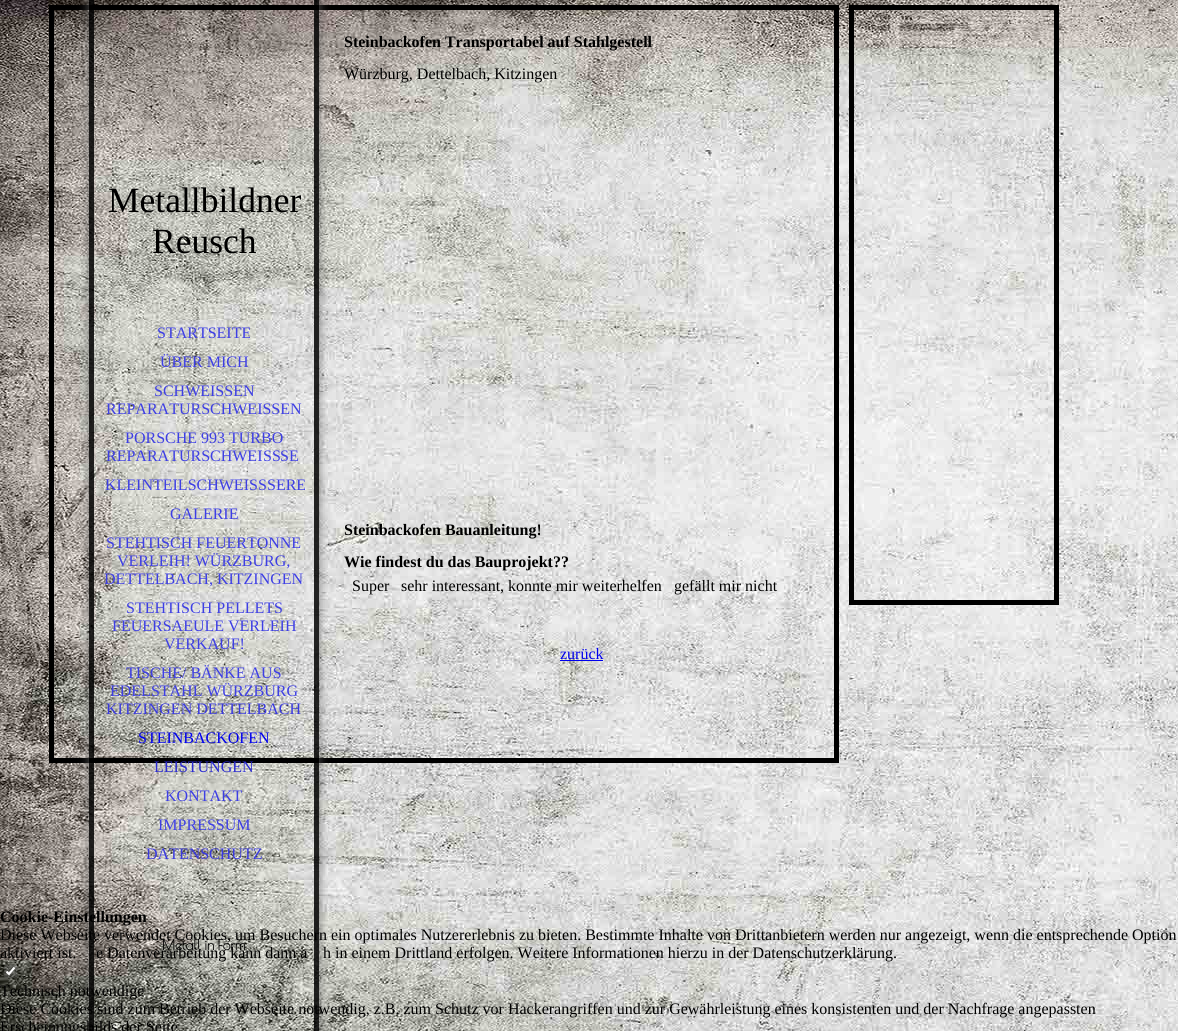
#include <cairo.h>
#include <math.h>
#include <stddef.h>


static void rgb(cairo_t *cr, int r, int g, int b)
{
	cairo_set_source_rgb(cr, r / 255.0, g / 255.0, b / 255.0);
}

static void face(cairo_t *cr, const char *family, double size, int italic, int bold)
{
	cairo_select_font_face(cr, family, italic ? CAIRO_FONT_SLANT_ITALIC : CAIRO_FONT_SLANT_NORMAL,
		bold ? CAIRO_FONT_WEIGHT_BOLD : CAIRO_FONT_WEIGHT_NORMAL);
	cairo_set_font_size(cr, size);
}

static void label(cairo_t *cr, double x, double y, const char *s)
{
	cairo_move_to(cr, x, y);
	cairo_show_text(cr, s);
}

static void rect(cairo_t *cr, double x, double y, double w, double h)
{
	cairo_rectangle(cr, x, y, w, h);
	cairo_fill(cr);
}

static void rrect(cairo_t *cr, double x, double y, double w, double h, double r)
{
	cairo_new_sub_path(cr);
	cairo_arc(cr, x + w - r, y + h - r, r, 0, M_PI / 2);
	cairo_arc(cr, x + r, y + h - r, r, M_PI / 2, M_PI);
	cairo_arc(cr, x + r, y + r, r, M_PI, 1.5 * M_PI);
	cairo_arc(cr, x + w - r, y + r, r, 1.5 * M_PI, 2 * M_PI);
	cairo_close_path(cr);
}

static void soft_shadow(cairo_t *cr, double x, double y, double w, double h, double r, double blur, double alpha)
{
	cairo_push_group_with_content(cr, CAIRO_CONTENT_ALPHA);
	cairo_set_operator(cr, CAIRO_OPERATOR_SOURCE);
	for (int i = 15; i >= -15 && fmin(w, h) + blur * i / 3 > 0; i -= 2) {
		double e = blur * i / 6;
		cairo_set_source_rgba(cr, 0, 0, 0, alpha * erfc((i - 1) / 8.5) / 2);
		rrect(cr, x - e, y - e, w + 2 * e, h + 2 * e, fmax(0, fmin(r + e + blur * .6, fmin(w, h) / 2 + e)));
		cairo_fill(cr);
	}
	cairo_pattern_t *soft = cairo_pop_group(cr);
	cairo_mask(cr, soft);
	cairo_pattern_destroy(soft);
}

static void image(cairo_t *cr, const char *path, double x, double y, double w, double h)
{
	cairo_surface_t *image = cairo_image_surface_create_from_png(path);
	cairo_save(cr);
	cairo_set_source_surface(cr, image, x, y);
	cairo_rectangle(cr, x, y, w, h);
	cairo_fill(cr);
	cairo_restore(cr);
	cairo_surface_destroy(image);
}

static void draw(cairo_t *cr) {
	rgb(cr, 255, 255, 255);
	cairo_paint(cr);
	image(cr, "image0.png", 0, 0, 1178, 1031);
	cairo_rectangle(cr, 51.5, 7.5, 785, 753);
	rgb(cr, 0, 0, 0);
	cairo_set_line_width(cr, 5);
	cairo_stroke(cr);
	cairo_save(cr);
	cairo_set_fill_rule(cr, CAIRO_FILL_RULE_EVEN_ODD);
	cairo_new_path(cr);
	cairo_move_to(cr, 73, 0);
	cairo_line_to(cr, 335, 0);
	cairo_line_to(cr, 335, 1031);
	cairo_line_to(cr, 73, 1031);
	cairo_close_path(cr);
	cairo_move_to(cr, 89, 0);
	cairo_line_to(cr, 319, 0);
	cairo_line_to(cr, 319, 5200);
	cairo_line_to(cr, 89, 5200);
	cairo_close_path(cr);
	cairo_clip(cr);
	rgb(cr, 102, 102, 102);
	soft_shadow(cr, 89, 0, 230, 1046, 0, 5, 0.85);
	cairo_restore(cr);
	face(cr, "Liberation Serif", 16, 0, 0);
	label(cr, 0, 940, "Diese Webseite verwendet Cookies, um Besuchern ein optimales Nutzererlebnis zu bieten. Bestimmte Inhalte von Drittanbietern werden nur angezeigt, wenn die entsprechende Option");
	label(cr, 0, 1014, "Diese Cookies sind zum Betrieb der Webseite notwendig, z.B. zum Schutz vor Hackerangriffen und zur Gewährleistung eines konsistenten und der Nachfrage angepassten");
	cairo_set_source_rgba(cr, 0, 0, 0, 0.85);
	rect(cr, 314, 0, 5, 1031);
	face(cr, "Liberation Serif", 16, 0, 1);
	rgb(cr, 0, 0, 0);
	label(cr, 0, 922, "Cookie-Einstellungen");
	face(cr, "Liberation Serif", 16, 0, 0);
	label(cr, 0, 996, "Technisch notwendige");
	label(cr, 0, 1032, "Erscheinungsbilds der Seite.");
	cairo_set_source_rgba(cr, 0, 0, 0, 0.85);
	rect(cr, 89, 0, 5, 1031);
	face(cr, "Liberation Serif", 16, 0, 1);
	rgb(cr, 0, 0, 0);
	label(cr, 344, 47, "Steinbackofen Transportabel auf Stahlgestell");
	face(cr, "Liberation Serif", 16, 0, 0);
	label(cr, 344, 79, "Würzburg, Dettelbach, Kitzingen");
	face(cr, "Liberation Serif", 16, 0, 1);
	label(cr, 344, 535, "Steinbackofen Bauanleitung!");
	label(cr, 344, 567, "Wie findest du das Bauprojekt?\077");
	face(cr, "Liberation Serif", 16, 0, 0);
	label(cr, 352, 591, "Super");
	label(cr, 401, 591, "sehr interessant, konnte mir weiterhelfen");
	label(cr, 674, 591, "gefällt mir nicht");
	rgb(cr, 0, 0, 238);
	label(cr, 560, 659, "zurück");
	rect(cr, 560, 660, 43, 1);
	cairo_rectangle(cr, 851.5, 7.5, 205, 595);
	rgb(cr, 0, 0, 0);
	cairo_stroke(cr);
	face(cr, "Liberation Serif", 35.5, 0, 0);
	label(cr, 108, 212, "Metallbildner");
	label(cr, 152, 253, "Reusch");
	face(cr, "Liberation Serif", 16, 0, 0);
	rgb(cr, 62, 63, 228);
	label(cr, 157, 338, "STARTSEITE");
	label(cr, 160, 367, "ÜBER MICH");
	label(cr, 154, 396, "SCHWEISSEN");
	label(cr, 106, 414, "REPARATURSCHWEISSEN");
	label(cr, 125, 443, "PORSCHE 993 TURBO");
	label(cr, 106, 461, "REPARATURSCHWEI");
	label(cr, 263, 461, "SS");
	label(cr, 280, 461, "SE");
	label(cr, 105, 490, "KLEINTEILSCHWEI");
	label(cr, 249, 490, "SS");
	label(cr, 267, 490, "SERE");
	label(cr, 170, 519, "GALERIE");
	label(cr, 106, 548, "STEHTISCH FEUERTONNE");
	label(cr, 117, 566, "VERLEIH! WÜRZBURG,");
	label(cr, 104, 584, "DETTELBACH, KITZINGEN");
	label(cr, 126, 613, "STEHTISCH PELLETS");
	label(cr, 112, 631, "FEUERSAEULE VERLEIH");
	label(cr, 164, 649, "VERKAUF!");
	label(cr, 126, 678, "TISCHE/ BÄNKE AUS");
	label(cr, 110, 696, "EDELSTAHL WÜRZBURG");
	rgb(cr, 57, 57, 222);
	label(cr, 106, 714, "KITZINGEN DETTELBACH");
	rgb(cr, 0, 0, 238);
	label(cr, 138, 743, "STEINBACKOFEN");
	rgb(cr, 44, 44, 209);
	label(cr, 154, 772, "LEISTUNGEN");
	rgb(cr, 62, 63, 228);
	label(cr, 165, 801, "KONTAKT");
	label(cr, 158, 830, "IMPRESSUM");
	rgb(cr, 57, 57, 222);
	label(cr, 146, 859, "DATENSCHUTZ");
	rgb(cr, 0, 0, 0);
	label(cr, 96, 958, "e Datenverarbeitung kann dann a");
	face(cr, "Poiret One", 14, 0, 1);
	label(cr, 162, 950, "Metall in Form");
	face(cr, "Liberation Serif", 16, 0, 0);
	label(cr, 0, 958, "aktiviert ist.");
	label(cr, 323, 958, "h in einem Drittland erfolgen. Weitere Informationen hierzu in der Datenschutzerklärung.");
	cairo_set_source_rgba(cr, 0.463, 0.463, 0.463, 0.3);
	rrect(cr, 4, 965, 13, 13, 2);
	cairo_fill(cr);
	cairo_new_path(cr);
	cairo_move_to(cr, 6.5, 971.5);
	cairo_line_to(cr, 9, 974);
	cairo_line_to(cr, 14.5, 967.5);
	rgb(cr, 255, 255, 255);
	cairo_set_line_width(cr, 2.1);
	cairo_stroke(cr);
}

int main(void) {
	cairo_surface_t *surface = cairo_image_surface_create(CAIRO_FORMAT_RGB24, 1178, 1031);
	cairo_t *cr = cairo_create(surface);
	cairo_font_options_t *options = cairo_font_options_create();
	cairo_font_options_set_hint_metrics(options, CAIRO_HINT_METRICS_OFF);
	cairo_font_options_set_hint_style(options, CAIRO_HINT_STYLE_NONE);
	cairo_set_font_options(cr, options);
	cairo_set_miter_limit(cr, 4);
	draw(cr);
	cairo_surface_write_to_png(surface, "render.png");
	cairo_font_options_destroy(options);
	cairo_destroy(cr);
	cairo_surface_destroy(surface);
	return 0;
}
